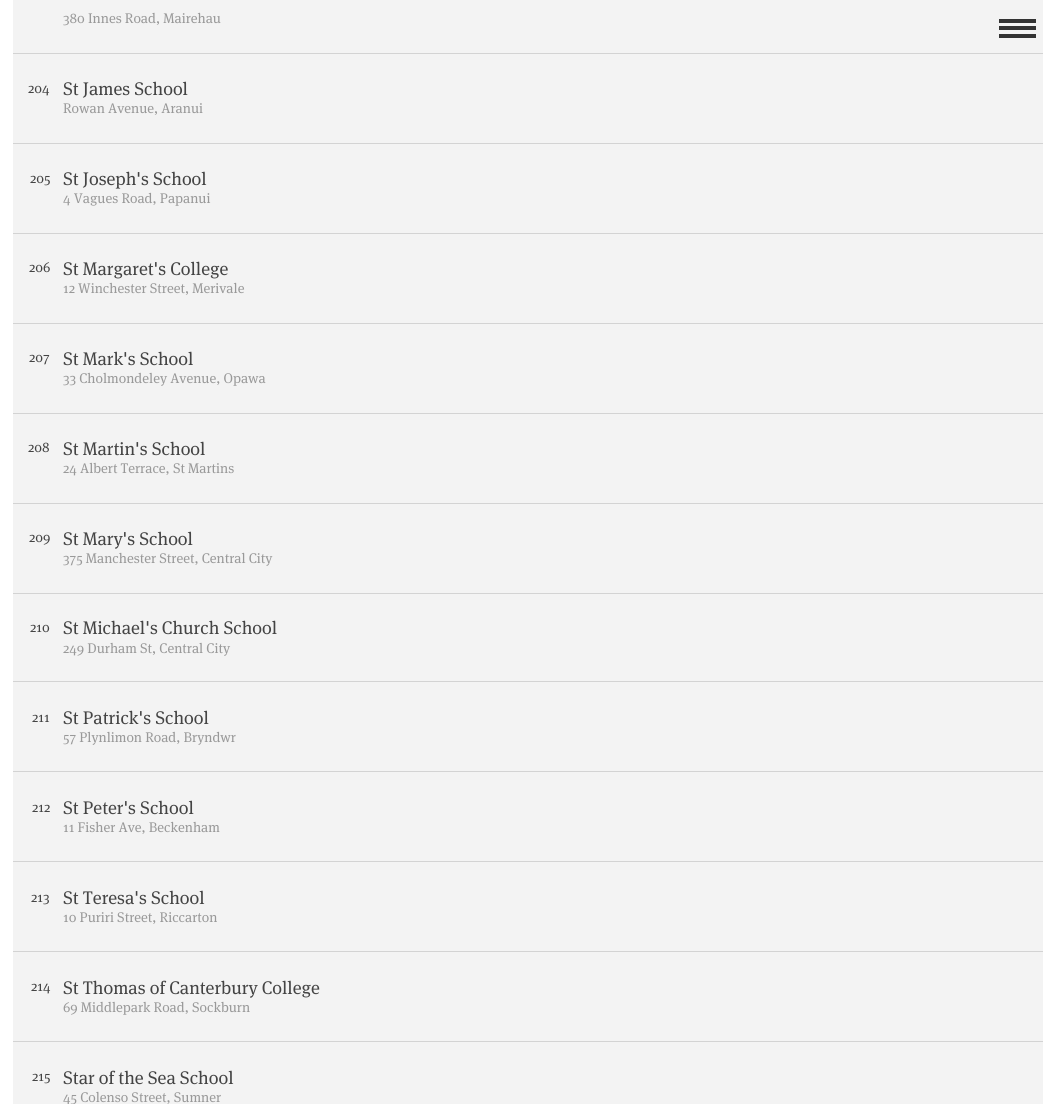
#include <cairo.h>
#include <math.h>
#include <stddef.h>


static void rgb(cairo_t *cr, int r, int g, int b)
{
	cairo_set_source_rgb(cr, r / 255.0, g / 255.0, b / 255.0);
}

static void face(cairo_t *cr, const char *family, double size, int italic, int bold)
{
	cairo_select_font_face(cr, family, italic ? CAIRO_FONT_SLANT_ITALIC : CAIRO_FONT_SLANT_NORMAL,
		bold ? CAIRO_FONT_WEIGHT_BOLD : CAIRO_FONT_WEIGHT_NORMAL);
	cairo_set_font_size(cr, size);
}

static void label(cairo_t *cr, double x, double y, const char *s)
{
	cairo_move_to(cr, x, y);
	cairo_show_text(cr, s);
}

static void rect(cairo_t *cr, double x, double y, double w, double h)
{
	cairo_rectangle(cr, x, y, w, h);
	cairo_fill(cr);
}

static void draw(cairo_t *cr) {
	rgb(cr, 255, 255, 255);
	cairo_paint(cr);
	rgb(cr, 243, 243, 243);
	rect(cr, 13, 0, 1030, 1104);
	rgb(cr, 211, 211, 211);
	rect(cr, 13, 53, 1030, 1);
	face(cr, "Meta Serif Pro", 14, 0, 0);
	rgb(cr, 153, 153, 153);
	label(cr, 63, 23, "380 Innes Road, Mairehau");
	rgb(cr, 211, 211, 211);
	rect(cr, 13, 143, 1030, 1);
	rgb(cr, 68, 68, 68);
	label(cr, 28, 93, "204");
	face(cr, "Meta Serif Pro", 18.25, 0, 0);
	label(cr, 63, 95, "St James School");
	face(cr, "Meta Serif Pro", 14, 0, 0);
	rgb(cr, 153, 153, 153);
	label(cr, 63, 113, "Rowan Avenue, Aranui");
	rgb(cr, 211, 211, 211);
	rect(cr, 13, 233, 1030, 1);
	rgb(cr, 68, 68, 68);
	label(cr, 30, 183, "205");
	face(cr, "Meta Serif Pro", 18.25, 0, 0);
	label(cr, 63, 185, "St Joseph's School");
	face(cr, "Meta Serif Pro", 14, 0, 0);
	rgb(cr, 153, 153, 153);
	label(cr, 63, 203, "4 Vagues Road, Papanui");
	rgb(cr, 211, 211, 211);
	rect(cr, 13, 323, 1030, 1);
	rgb(cr, 68, 68, 68);
	label(cr, 29, 272, "206");
	face(cr, "Meta Serif Pro", 18.25, 0, 0);
	label(cr, 63, 275, "St Margaret's College");
	face(cr, "Meta Serif Pro", 14, 0, 0);
	rgb(cr, 153, 153, 153);
	label(cr, 63, 293, "12 Winchester Street, Merivale");
	rgb(cr, 211, 211, 211);
	rect(cr, 13, 413, 1030, 1);
	rgb(cr, 68, 68, 68);
	label(cr, 29, 362, "207");
	face(cr, "Meta Serif Pro", 18.25, 0, 0);
	label(cr, 63, 365, "St Mark's School");
	face(cr, "Meta Serif Pro", 14, 0, 0);
	rgb(cr, 153, 153, 153);
	label(cr, 63, 383, "33 Cholmondeley Avenue, Opawa");
	rgb(cr, 211, 211, 211);
	rect(cr, 13, 503, 1030, 1);
	rgb(cr, 68, 68, 68);
	label(cr, 28, 452, "208");
	face(cr, "Meta Serif Pro", 18.25, 0, 0);
	label(cr, 63, 455, "St Martin's School");
	face(cr, "Meta Serif Pro", 14, 0, 0);
	rgb(cr, 153, 153, 153);
	label(cr, 63, 473, "24 Albert Terrace, St Martins");
	rgb(cr, 211, 211, 211);
	rect(cr, 13, 593, 1030, 1);
	rgb(cr, 68, 68, 68);
	label(cr, 29, 542, "209");
	face(cr, "Meta Serif Pro", 18.25, 0, 0);
	label(cr, 63, 545, "St Mary's School");
	face(cr, "Meta Serif Pro", 14, 0, 0);
	rgb(cr, 153, 153, 153);
	label(cr, 63, 563, "375 Manchester Street, Central City");
	rgb(cr, 211, 211, 211);
	rect(cr, 13, 681, 1030, 1);
	rgb(cr, 68, 68, 68);
	label(cr, 30, 632, "210");
	face(cr, "Meta Serif Pro", 18.25, 0, 0);
	label(cr, 63, 634, "St Michael's Church School");
	face(cr, "Meta Serif Pro", 14, 0, 0);
	rgb(cr, 153, 153, 153);
	label(cr, 63, 653, "249 Durham St, Central City");
	rgb(cr, 211, 211, 211);
	rect(cr, 13, 771, 1030, 1);
	rgb(cr, 68, 68, 68);
	label(cr, 32, 722, "211");
	face(cr, "Meta Serif Pro", 18.25, 0, 0);
	label(cr, 63, 724, "St Patrick's School");
	face(cr, "Meta Serif Pro", 14, 0, 0);
	rgb(cr, 153, 153, 153);
	label(cr, 63, 742, "57 Plynlimon Road, Bryndwr");
	rgb(cr, 211, 211, 211);
	rect(cr, 13, 861, 1030, 1);
	rgb(cr, 68, 68, 68);
	label(cr, 32, 812, "212");
	face(cr, "Meta Serif Pro", 18.25, 0, 0);
	label(cr, 63, 814, "St Peter's School");
	face(cr, "Meta Serif Pro", 14, 0, 0);
	rgb(cr, 153, 153, 153);
	label(cr, 63, 832, "11 Fisher Ave, Beckenham");
	rgb(cr, 211, 211, 211);
	rect(cr, 13, 951, 1030, 1);
	rgb(cr, 68, 68, 68);
	label(cr, 31, 902, "213");
	face(cr, "Meta Serif Pro", 18.25, 0, 0);
	label(cr, 63, 904, "St Teresa's School");
	face(cr, "Meta Serif Pro", 14, 0, 0);
	rgb(cr, 153, 153, 153);
	label(cr, 63, 922, "10 Puriri Street, Riccarton");
	rgb(cr, 211, 211, 211);
	rect(cr, 13, 1041, 1030, 1);
	rgb(cr, 68, 68, 68);
	label(cr, 31, 991, "214");
	face(cr, "Meta Serif Pro", 18.25, 0, 0);
	label(cr, 63, 994, "St Thomas of Canterbury College");
	face(cr, "Meta Serif Pro", 14, 0, 0);
	rgb(cr, 153, 153, 153);
	label(cr, 63, 1012, "69 Middlepark Road, Sockburn");
	rgb(cr, 68, 68, 68);
	label(cr, 32, 1081, "215");
	face(cr, "Meta Serif Pro", 18.25, 0, 0);
	label(cr, 63, 1084, "Star of the Sea School");
	face(cr, "Meta Serif Pro", 14, 0, 0);
	rgb(cr, 153, 153, 153);
	label(cr, 63, 1102, "45 Colenso Street, Sumner");
	rgb(cr, 51, 51, 51);
	rect(cr, 999, 19, 37, 4);
	rect(cr, 999, 34, 37, 4);
	rect(cr, 999, 26, 37, 4);
}

int main(void) {
	cairo_surface_t *surface = cairo_image_surface_create(CAIRO_FORMAT_RGB24, 1054, 1104);
	cairo_t *cr = cairo_create(surface);
	cairo_font_options_t *options = cairo_font_options_create();
	cairo_font_options_set_hint_metrics(options, CAIRO_HINT_METRICS_OFF);
	cairo_font_options_set_hint_style(options, CAIRO_HINT_STYLE_NONE);
	cairo_set_font_options(cr, options);
	cairo_set_miter_limit(cr, 4);
	draw(cr);
	cairo_surface_write_to_png(surface, "render.png");
	cairo_font_options_destroy(options);
	cairo_destroy(cr);
	cairo_surface_destroy(surface);
	return 0;
}
